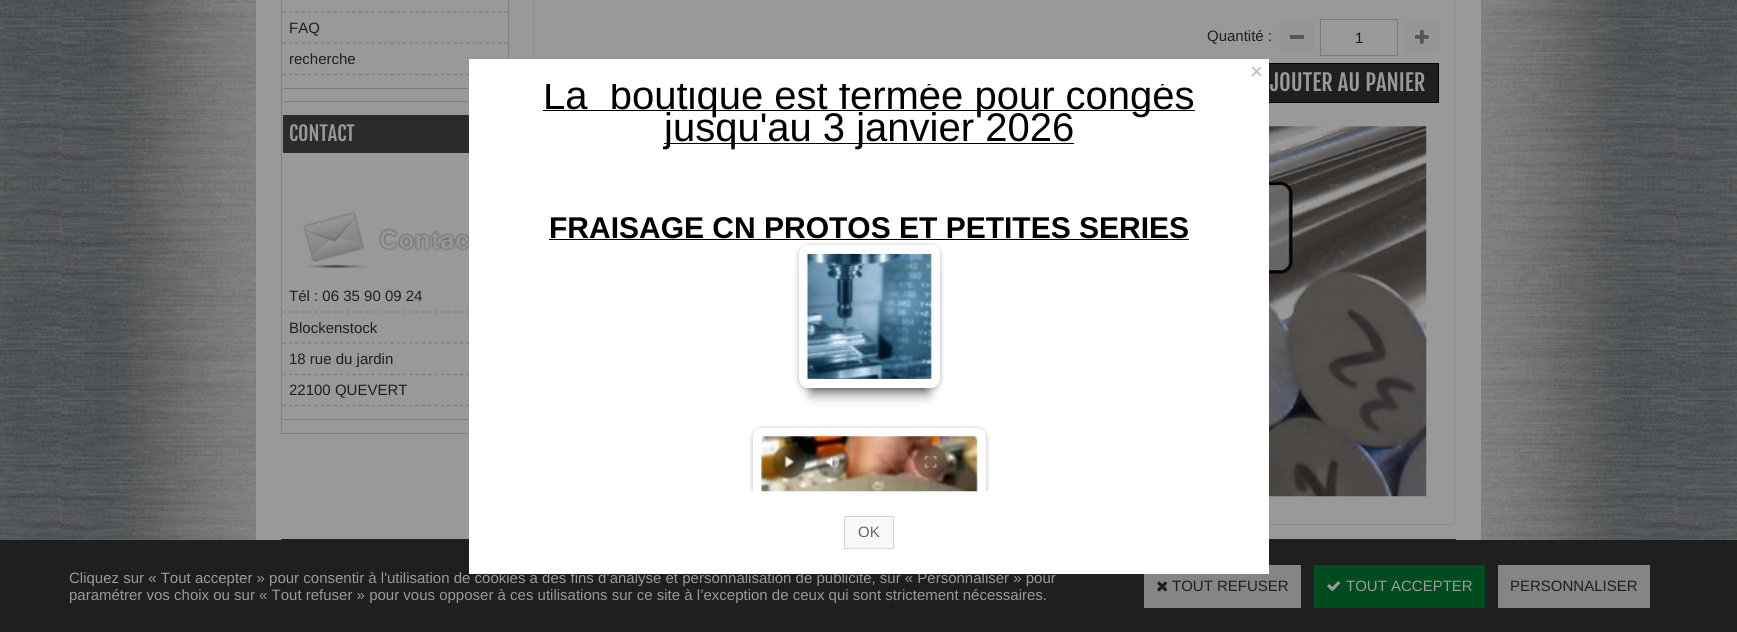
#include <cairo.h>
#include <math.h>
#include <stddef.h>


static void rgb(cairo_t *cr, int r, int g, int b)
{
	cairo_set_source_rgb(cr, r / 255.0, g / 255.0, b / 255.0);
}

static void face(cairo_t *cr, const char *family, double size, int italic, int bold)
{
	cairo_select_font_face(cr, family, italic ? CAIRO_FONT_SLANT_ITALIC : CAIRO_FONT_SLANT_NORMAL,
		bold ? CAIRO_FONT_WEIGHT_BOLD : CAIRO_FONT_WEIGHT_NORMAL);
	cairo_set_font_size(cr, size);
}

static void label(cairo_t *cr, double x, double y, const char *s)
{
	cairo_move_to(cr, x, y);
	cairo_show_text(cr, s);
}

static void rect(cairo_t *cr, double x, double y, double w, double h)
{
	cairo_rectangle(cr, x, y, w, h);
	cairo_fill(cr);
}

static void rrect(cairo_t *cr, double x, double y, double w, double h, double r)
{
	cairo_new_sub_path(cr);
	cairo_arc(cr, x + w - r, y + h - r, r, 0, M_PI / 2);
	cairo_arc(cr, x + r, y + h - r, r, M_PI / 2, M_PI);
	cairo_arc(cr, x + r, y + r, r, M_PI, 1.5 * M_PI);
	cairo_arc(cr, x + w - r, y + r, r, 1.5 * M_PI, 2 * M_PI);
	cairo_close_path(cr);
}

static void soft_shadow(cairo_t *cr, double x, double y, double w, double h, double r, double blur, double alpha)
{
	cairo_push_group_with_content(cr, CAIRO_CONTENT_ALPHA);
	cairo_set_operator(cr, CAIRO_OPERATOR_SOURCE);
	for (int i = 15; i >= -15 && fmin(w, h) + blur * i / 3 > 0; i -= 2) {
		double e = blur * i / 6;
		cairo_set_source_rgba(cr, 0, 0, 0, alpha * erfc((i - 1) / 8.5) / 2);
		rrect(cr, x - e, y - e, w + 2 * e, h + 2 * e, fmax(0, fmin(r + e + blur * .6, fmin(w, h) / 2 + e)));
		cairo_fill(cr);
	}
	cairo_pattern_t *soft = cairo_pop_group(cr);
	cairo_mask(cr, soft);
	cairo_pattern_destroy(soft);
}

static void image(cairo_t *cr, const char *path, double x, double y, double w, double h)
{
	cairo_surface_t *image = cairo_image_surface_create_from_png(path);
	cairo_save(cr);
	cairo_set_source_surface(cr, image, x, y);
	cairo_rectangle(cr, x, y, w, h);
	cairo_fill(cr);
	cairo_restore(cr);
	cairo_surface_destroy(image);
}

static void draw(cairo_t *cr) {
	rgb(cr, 255, 255, 255);
	cairo_paint(cr);
	image(cr, "image0.png", 0, 0, 1737, 540);
	rgb(cr, 153, 153, 153);
	rect(cr, 256, 0, 1225, 540);
	cairo_rectangle(cr, 281.5, -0.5, 227, 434);
	rgb(cr, 127, 127, 127);
	cairo_set_line_width(cr, 1);
	cairo_stroke(cr);
	cairo_new_path(cr);
	cairo_move_to(cr, 282.5, 12);
	cairo_line_to(cr, 507.5, 12);
	cairo_set_line_width(cr, 1.2);
	cairo_set_dash(cr, (double[]){3.75, 2.58}, 2, 0);
	cairo_stroke(cr);
	cairo_new_path(cr);
	cairo_move_to(cr, 282.5, 43);
	cairo_line_to(cr, 507.5, 43);
	cairo_stroke(cr);
	face(cr, "Liberation Sans", 15, 0, 0);
	rgb(cr, 31, 31, 31);
	label(cr, 289, 33, "FAQ");
	cairo_new_path(cr);
	cairo_move_to(cr, 282.5, 74.5);
	cairo_line_to(cr, 507.5, 74.5);
	rgb(cr, 127, 127, 127);
	cairo_stroke(cr);
	rgb(cr, 31, 31, 31);
	label(cr, 289, 64, "recherche");
	rgb(cr, 127, 127, 127);
	rect(cr, 283, 88, 186, 1);
	rect(cr, 283, 101, 186, 1);
	rgb(cr, 44, 43, 42);
	rect(cr, 283, 115, 186, 38);
	face(cr, "Fjalla One", 20, 0, 0);
	rgb(cr, 153, 153, 153);
	label(cr, 289, 141, "CONTACT");
	image(cr, "image1.png", 303, 212, 166, 56);
	cairo_new_path(cr);
	cairo_move_to(cr, 282.5, 312);
	cairo_line_to(cr, 507.5, 312);
	rgb(cr, 127, 127, 127);
	cairo_stroke(cr);
	face(cr, "Liberation Sans", 15, 0, 0);
	rgb(cr, 31, 31, 31);
	label(cr, 289, 301, "Tél : 06 35 90 09 24");
	cairo_new_path(cr);
	cairo_move_to(cr, 282.5, 343);
	cairo_line_to(cr, 507.5, 343);
	rgb(cr, 127, 127, 127);
	cairo_stroke(cr);
	rgb(cr, 31, 31, 31);
	label(cr, 289, 333, "Blockenstock");
	cairo_new_path(cr);
	cairo_move_to(cr, 282.5, 374.5);
	cairo_line_to(cr, 507.5, 374.5);
	rgb(cr, 127, 127, 127);
	cairo_stroke(cr);
	rgb(cr, 31, 31, 31);
	label(cr, 289, 364, "18 rue du jardin");
	cairo_new_path(cr);
	cairo_move_to(cr, 282.5, 405.5);
	cairo_line_to(cr, 507.5, 405.5);
	rgb(cr, 127, 127, 127);
	cairo_stroke(cr);
	rgb(cr, 31, 31, 31);
	label(cr, 289, 395, "22100 QUEVERT");
	rgb(cr, 127, 127, 127);
	rect(cr, 283, 419, 186, 1);
	cairo_rectangle(cr, 533.5, -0.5, 921, 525);
	rgb(cr, 141, 141, 141);
	cairo_set_line_width(cr, 1);
	cairo_set_dash(cr, NULL, 0, 0);
	cairo_stroke(cr);
	rgb(cr, 31, 31, 31);
	label(cr, 1207, 41, "Quantité :");
	rgb(cr, 150, 150, 150);
	rect(cr, 1279, 19, 35, 35);
	rgb(cr, 85, 85, 85);
	rect(cr, 1290, 35, 14, 4);
	cairo_rectangle(cr, 1320.5, 19.5, 77, 36);
	rgb(cr, 122, 122, 122);
	cairo_stroke(cr);
	rgb(cr, 20, 20, 20);
	label(cr, 1355, 43, "1");
	rgb(cr, 150, 150, 150);
	rect(cr, 1404, 19, 35, 35);
	image(cr, "image2.png", 1415, 30, 14, 14);
	rgb(cr, 31, 31, 31);
	rect(cr, 1269, 64, 169, 38);
	cairo_rectangle(cr, 1245.5, 63.5, 193, 39);
	rgb(cr, 0, 0, 0);
	cairo_stroke(cr);
	face(cr, "Fjalla One", 22.5, 0, 0);
	rgb(cr, 153, 153, 153);
	label(cr, 1270, 91, "JOUTER AU PANIER");
	image(cr, "image3.png", 1269, 126, 158, 371);
	rgb(cr, 31, 31, 31);
	rect(cr, 281, 539, 1175, 1);
	rect(cr, 0, 540, 1737, 92);
	face(cr, "Liberation Sans", 15, 0, 0);
	rgb(cr, 153, 153, 153);
	label(cr, 69, 583, "Cliquez sur « Tout accepter » pour consentir à l'utilisation de cookies à des fins d’analyse et personnalisation de publicité, sur « Personnaliser » pour");
	label(cr, 69, 600, "paramétrer vos choix ou sur « Tout refuser » pour vous opposer à ces utilisations sur ce site à l’exception de ceux qui sont strictement nécessaires.");
	rgb(cr, 133, 133, 133);
	rect(cr, 1144, 565, 157, 43);
	image(cr, "image4.png", 1157, 581, 11, 11);
	rgb(cr, 31, 31, 31);
	label(cr, 1172, 591, "TOUT REFUSER");
	rgb(cr, 0, 76, 31);
	rect(cr, 1314, 565, 171, 43);
	image(cr, "image5.png", 1327, 581, 14, 11);
	rgb(cr, 153, 153, 153);
	label(cr, 1346, 591, "TOUT ACCEPTER");
	rgb(cr, 133, 133, 133);
	rect(cr, 1498, 565, 152, 43);
	rgb(cr, 31, 31, 31);
	label(cr, 1510, 591, "PERSONNALISER");
	rgb(cr, 255, 255, 255);
	rect(cr, 469, 59, 800, 515);
	face(cr, "Liberation Sans", 22.5, 0, 0);
	rgb(cr, 187, 187, 187);
	label(cr, 1250, 79, "×");
	rgb(cr, 0, 0, 0);
	rect(cr, 543, 110, 652, 1);
	cairo_save(cr);
	cairo_rectangle(cr, 494, 84, 750, 407);
	cairo_clip(cr);
	face(cr, "Liberation Sans", 40, 0, 0);
	label(cr, 543, 109, "La  boutique est fermée pour congés");
	cairo_restore(cr);
	rect(cr, 664, 143, 410, 1);
	face(cr, "Liberation Sans", 40, 0, 0);
	label(cr, 664, 141, "jusqu'au 3 janvier 2026");
	face(cr, "Liberation Sans", 30, 0, 1);
	label(cr, 549, 238, "FRAISAGE CN PROTOS ET PETITES SERIES");
	rect(cr, 549, 239, 640, 1);
	rgb(cr, 0, 0, 0);
	soft_shadow(cr, 799, 246, 141, 143, 9, 2.5, 0.3);
	soft_shadow(cr, 811, 276, 117, 118, 0, 6, 0.5);
	rrect(cr, 803.5, 249.5, 132, 134, 4.5);
	rgb(cr, 255, 255, 255);
	cairo_set_line_width(cr, 9);
	cairo_stroke(cr);
	image(cr, "image6.png", 807, 253, 125, 126);
	rgb(cr, 248, 248, 248);
	cairo_rectangle(cr, 844.5, 516.5, 49, 32);
	cairo_fill_preserve(cr);
	rgb(cr, 212, 212, 212);
	cairo_set_line_width(cr, 1);
	cairo_stroke(cr);
	cairo_save(cr);
	cairo_rectangle(cr, 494, 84, 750, 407);
	cairo_clip(cr);
	rgb(cr, 0, 0, 0);
	soft_shadow(cr, 753, 429, 233, 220, 9, 2.5, 0.3);
	cairo_restore(cr);
	cairo_save(cr);
	cairo_rectangle(cr, 494, 84, 750, 407);
	cairo_clip(cr);
	rrect(cr, 757.5, 432.5, 224, 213, 4.5);
	rgb(cr, 255, 255, 255);
	cairo_set_line_width(cr, 9);
	cairo_stroke(cr);
	cairo_restore(cr);
	image(cr, "image7.png", 761, 436, 217, 56);
	face(cr, "Liberation Sans", 15, 0, 0);
	rgb(cr, 102, 102, 102);
	label(cr, 858, 537, "OK");
}

int main(void) {
	cairo_surface_t *surface = cairo_image_surface_create(CAIRO_FORMAT_RGB24, 1737, 632);
	cairo_t *cr = cairo_create(surface);
	cairo_font_options_t *options = cairo_font_options_create();
	cairo_font_options_set_hint_metrics(options, CAIRO_HINT_METRICS_OFF);
	cairo_font_options_set_hint_style(options, CAIRO_HINT_STYLE_NONE);
	cairo_set_font_options(cr, options);
	cairo_set_miter_limit(cr, 4);
	draw(cr);
	cairo_surface_write_to_png(surface, "render.png");
	cairo_font_options_destroy(options);
	cairo_destroy(cr);
	cairo_surface_destroy(surface);
	return 0;
}
